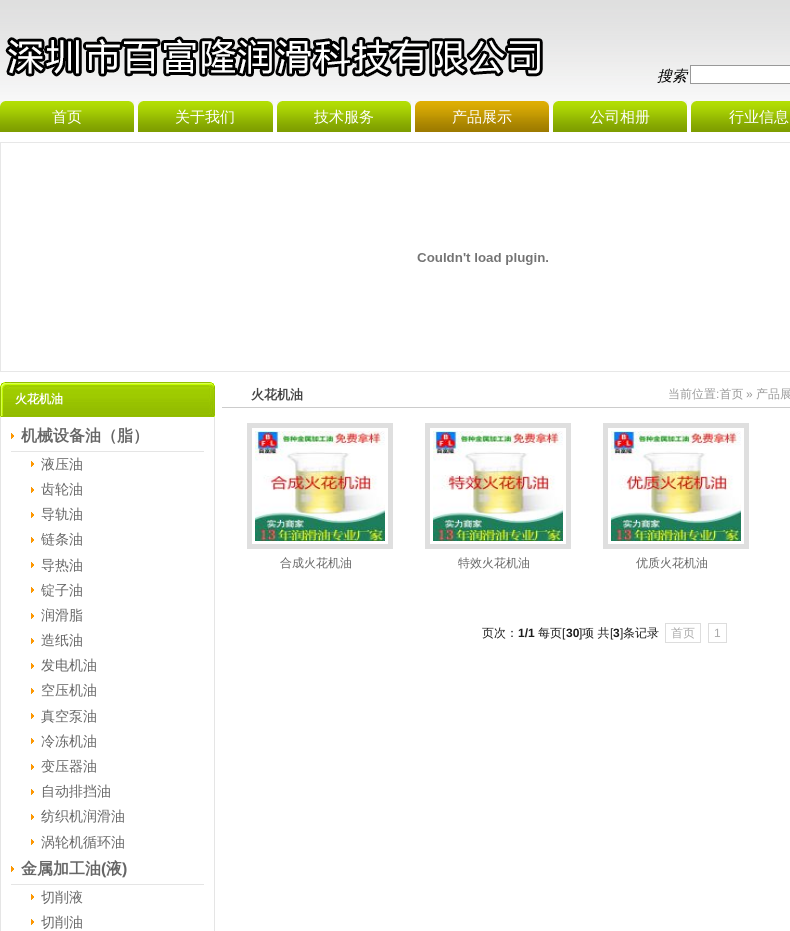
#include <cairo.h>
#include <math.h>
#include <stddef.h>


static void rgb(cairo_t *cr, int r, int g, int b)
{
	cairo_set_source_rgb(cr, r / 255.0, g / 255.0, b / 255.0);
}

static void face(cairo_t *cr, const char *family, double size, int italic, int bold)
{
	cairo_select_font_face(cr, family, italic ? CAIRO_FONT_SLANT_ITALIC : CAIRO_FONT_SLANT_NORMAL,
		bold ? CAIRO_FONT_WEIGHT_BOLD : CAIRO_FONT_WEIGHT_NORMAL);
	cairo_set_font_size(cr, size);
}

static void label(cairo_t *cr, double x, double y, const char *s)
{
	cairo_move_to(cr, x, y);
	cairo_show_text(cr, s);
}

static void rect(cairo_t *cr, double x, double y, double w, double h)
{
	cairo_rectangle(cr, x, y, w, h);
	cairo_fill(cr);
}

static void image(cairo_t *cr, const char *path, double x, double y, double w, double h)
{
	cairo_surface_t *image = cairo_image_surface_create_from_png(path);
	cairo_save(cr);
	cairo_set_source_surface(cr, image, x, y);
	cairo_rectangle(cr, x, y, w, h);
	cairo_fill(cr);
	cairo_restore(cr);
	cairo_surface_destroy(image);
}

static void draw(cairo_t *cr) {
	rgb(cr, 255, 255, 255);
	cairo_paint(cr);
	image(cr, "image0.png", 0, 0, 790, 110);
	image(cr, "image1.png", 5, 36, 538, 41);
	face(cr, "WenQuanYi Zen Hei Medium", 15, 1, 0);
	rgb(cr, 0, 0, 0);
	label(cr, 657, 81, "搜索");
	rgb(cr, 255, 255, 255);
	cairo_rectangle(cr, 690.5, 65.5, 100, 18);
	cairo_fill_preserve(cr);
	rgb(cr, 153, 153, 153);
	cairo_set_line_width(cr, 1);
	cairo_stroke(cr);
	image(cr, "image2.png", 0, 101, 134, 31);
	image(cr, "image3.png", 5, 101, 129, 6);
	face(cr, "WenQuanYi Zen Hei Medium", 15, 0, 0);
	rgb(cr, 255, 255, 255);
	label(cr, 52, 122, "首页");
	image(cr, "image4.png", 138, 101, 135, 31);
	image(cr, "image5.png", 143, 101, 130, 6);
	label(cr, 175, 122, "关于我们");
	image(cr, "image2.png", 277, 101, 134, 31);
	image(cr, "image3.png", 282, 101, 129, 6);
	label(cr, 314, 122, "技术服务");
	image(cr, "image6.png", 415, 101, 134, 31);
	image(cr, "image7.png", 420, 101, 129, 6);
	label(cr, 452, 122, "产品展示");
	image(cr, "image2.png", 553, 101, 134, 31);
	image(cr, "image3.png", 558, 101, 129, 6);
	label(cr, 590, 122, "公司相册");
	image(cr, "image8.png", 691, 101, 99, 31);
	rgb(cr, 179, 223, 4);
	rect(cr, 696, 101, 1, 1);
	rgb(cr, 255, 255, 255);
	label(cr, 729, 122, "行业信息");
	cairo_rectangle(cr, 0.5, 142.5, 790, 229);
	rgb(cr, 231, 231, 231);
	cairo_stroke(cr);
	image(cr, "image9.png", 417, 253, 131, 12);
	image(cr, "image10.png", 0, 382, 215, 35);
	face(cr, "WenQuanYi Zen Hei", 12, 0, 1);
	rgb(cr, 255, 255, 255);
	label(cr, 15, 403, "火花机油");
	rgb(cr, 229, 229, 229);
	rect(cr, 214, 417, 1, 514);
	rect(cr, 0, 417, 1, 514);
	image(cr, "image11.png", 11, 433, 3, 6);
	rect(cr, 11, 451, 193, 1);
	face(cr, "WenQuanYi Zen Hei", 16, 0, 1);
	rgb(cr, 102, 102, 102);
	label(cr, 21, 441, "机械设备油（脂）");
	image(cr, "image11.png", 31, 461, 3, 6);
	face(cr, "WenQuanYi Zen Hei Medium", 14, 0, 0);
	label(cr, 41, 469, "液压油");
	image(cr, "image11.png", 31, 487, 3, 6);
	label(cr, 41, 494, "齿轮油");
	image(cr, "image11.png", 31, 512, 3, 6);
	label(cr, 41, 519, "导轨油");
	image(cr, "image11.png", 31, 537, 3, 6);
	label(cr, 41, 544, "链条油");
	image(cr, "image11.png", 31, 562, 3, 6);
	label(cr, 41, 570, "导热油");
	image(cr, "image11.png", 31, 587, 3, 6);
	label(cr, 41, 595, "锭子油");
	image(cr, "image11.png", 31, 613, 3, 6);
	label(cr, 41, 620, "润滑脂");
	image(cr, "image11.png", 31, 638, 3, 6);
	label(cr, 41, 645, "造纸油");
	image(cr, "image11.png", 31, 663, 3, 6);
	label(cr, 41, 670, "发电机油");
	image(cr, "image11.png", 31, 688, 3, 6);
	label(cr, 41, 695, "空压机油");
	image(cr, "image11.png", 31, 713, 3, 6);
	label(cr, 41, 721, "真空泵油");
	image(cr, "image11.png", 31, 738, 3, 6);
	label(cr, 41, 746, "冷冻机油");
	image(cr, "image11.png", 31, 764, 3, 6);
	label(cr, 41, 771, "变压器油");
	image(cr, "image11.png", 31, 789, 3, 6);
	label(cr, 41, 796, "自动排挡油");
	image(cr, "image11.png", 31, 814, 3, 6);
	label(cr, 41, 821, "纺织机润滑油");
	image(cr, "image11.png", 31, 839, 3, 6);
	label(cr, 41, 847, "涡轮机循环油");
	image(cr, "image11.png", 11, 866, 3, 6);
	rgb(cr, 229, 229, 229);
	rect(cr, 11, 884, 193, 1);
	face(cr, "WenQuanYi Zen Hei", 16, 0, 1);
	rgb(cr, 102, 102, 102);
	label(cr, 21, 874, "金属加工油");
	face(cr, "Liberation Sans", 16, 0, 1);
	label(cr, 101, 874, "(");
	face(cr, "WenQuanYi Zen Hei", 16, 0, 1);
	label(cr, 106, 874, "液");
	face(cr, "Liberation Sans", 16, 0, 1);
	label(cr, 122, 874, ")");
	image(cr, "image11.png", 31, 894, 3, 6);
	face(cr, "WenQuanYi Zen Hei Medium", 14, 0, 0);
	label(cr, 41, 902, "切削液");
	image(cr, "image11.png", 31, 919, 3, 6);
	label(cr, 41, 927, "切削油");
	rgb(cr, 204, 204, 204);
	rect(cr, 222, 407, 568, 1);
	face(cr, "WenQuanYi Zen Hei", 13, 0, 1);
	rgb(cr, 68, 68, 68);
	label(cr, 251, 399, "火花机油");
	face(cr, "WenQuanYi Zen Hei Medium", 12, 0, 0);
	rgb(cr, 153, 153, 153);
	label(cr, 668, 398, "当前位置 首页");
	label(cr, 756, 398, "产品展");
	face(cr, "Liberation Sans", 12, 0, 0);
	label(cr, 716, 398, ":");
	label(cr, 746, 398, "»");
	cairo_rectangle(cr, 249.5, 425.5, 141, 121);
	rgb(cr, 223, 223, 223);
	cairo_set_line_width(cr, 5);
	cairo_stroke(cr);
	image(cr, "image12.png", 255, 431, 130, 110);
	face(cr, "WenQuanYi Zen Hei Medium", 12, 0, 0);
	rgb(cr, 102, 102, 102);
	label(cr, 280, 567, "合成火花机油");
	cairo_rectangle(cr, 427.5, 425.5, 141, 121);
	rgb(cr, 223, 223, 223);
	cairo_stroke(cr);
	image(cr, "image13.png", 433, 431, 130, 110);
	rgb(cr, 102, 102, 102);
	label(cr, 458, 567, "特效火花机油");
	cairo_rectangle(cr, 605.5, 425.5, 141, 121);
	rgb(cr, 223, 223, 223);
	cairo_stroke(cr);
	image(cr, "image14.png", 611, 431, 130, 110);
	rgb(cr, 102, 102, 102);
	label(cr, 636, 567, "优质火花机油");
	rgb(cr, 28, 28, 28);
	label(cr, 482, 637, "页次：");
	face(cr, "Liberation Sans", 12, 0, 1);
	label(cr, 518, 637, "1/1");
	face(cr, "WenQuanYi Zen Hei Medium", 12, 0, 0);
	label(cr, 538, 637, "每页");
	face(cr, "Liberation Sans", 12, 0, 0);
	label(cr, 562, 637, "[");
	face(cr, "Liberation Sans", 12, 0, 1);
	label(cr, 566, 637, "30");
	face(cr, "Liberation Sans", 12, 0, 0);
	label(cr, 579, 637, "]");
	face(cr, "WenQuanYi Zen Hei Medium", 12, 0, 0);
	label(cr, 582, 637, "项 共");
	face(cr, "Liberation Sans", 12, 0, 0);
	label(cr, 610, 637, "[");
	face(cr, "Liberation Sans", 12, 0, 1);
	label(cr, 613, 637, "3");
	face(cr, "Liberation Sans", 12, 0, 0);
	label(cr, 620, 637, "]");
	face(cr, "WenQuanYi Zen Hei Medium", 12, 0, 0);
	label(cr, 623, 637, "条记录");
	cairo_rectangle(cr, 665.5, 623.5, 35, 19);
	rgb(cr, 221, 221, 221);
	cairo_set_line_width(cr, 1);
	cairo_stroke(cr);
	rgb(cr, 170, 170, 170);
	label(cr, 671, 637, "首页");
	cairo_rectangle(cr, 708.5, 623.5, 18, 19);
	rgb(cr, 221, 221, 221);
	cairo_stroke(cr);
	face(cr, "Liberation Sans", 12, 0, 0);
	rgb(cr, 170, 170, 170);
	label(cr, 714, 637, "1");
}

int main(void) {
	cairo_surface_t *surface = cairo_image_surface_create(CAIRO_FORMAT_RGB24, 790, 931);
	cairo_t *cr = cairo_create(surface);
	cairo_font_options_t *options = cairo_font_options_create();
	cairo_font_options_set_hint_metrics(options, CAIRO_HINT_METRICS_OFF);
	cairo_font_options_set_hint_style(options, CAIRO_HINT_STYLE_NONE);
	cairo_set_font_options(cr, options);
	cairo_set_miter_limit(cr, 4);
	draw(cr);
	cairo_surface_write_to_png(surface, "render.png");
	cairo_font_options_destroy(options);
	cairo_destroy(cr);
	cairo_surface_destroy(surface);
	return 0;
}
